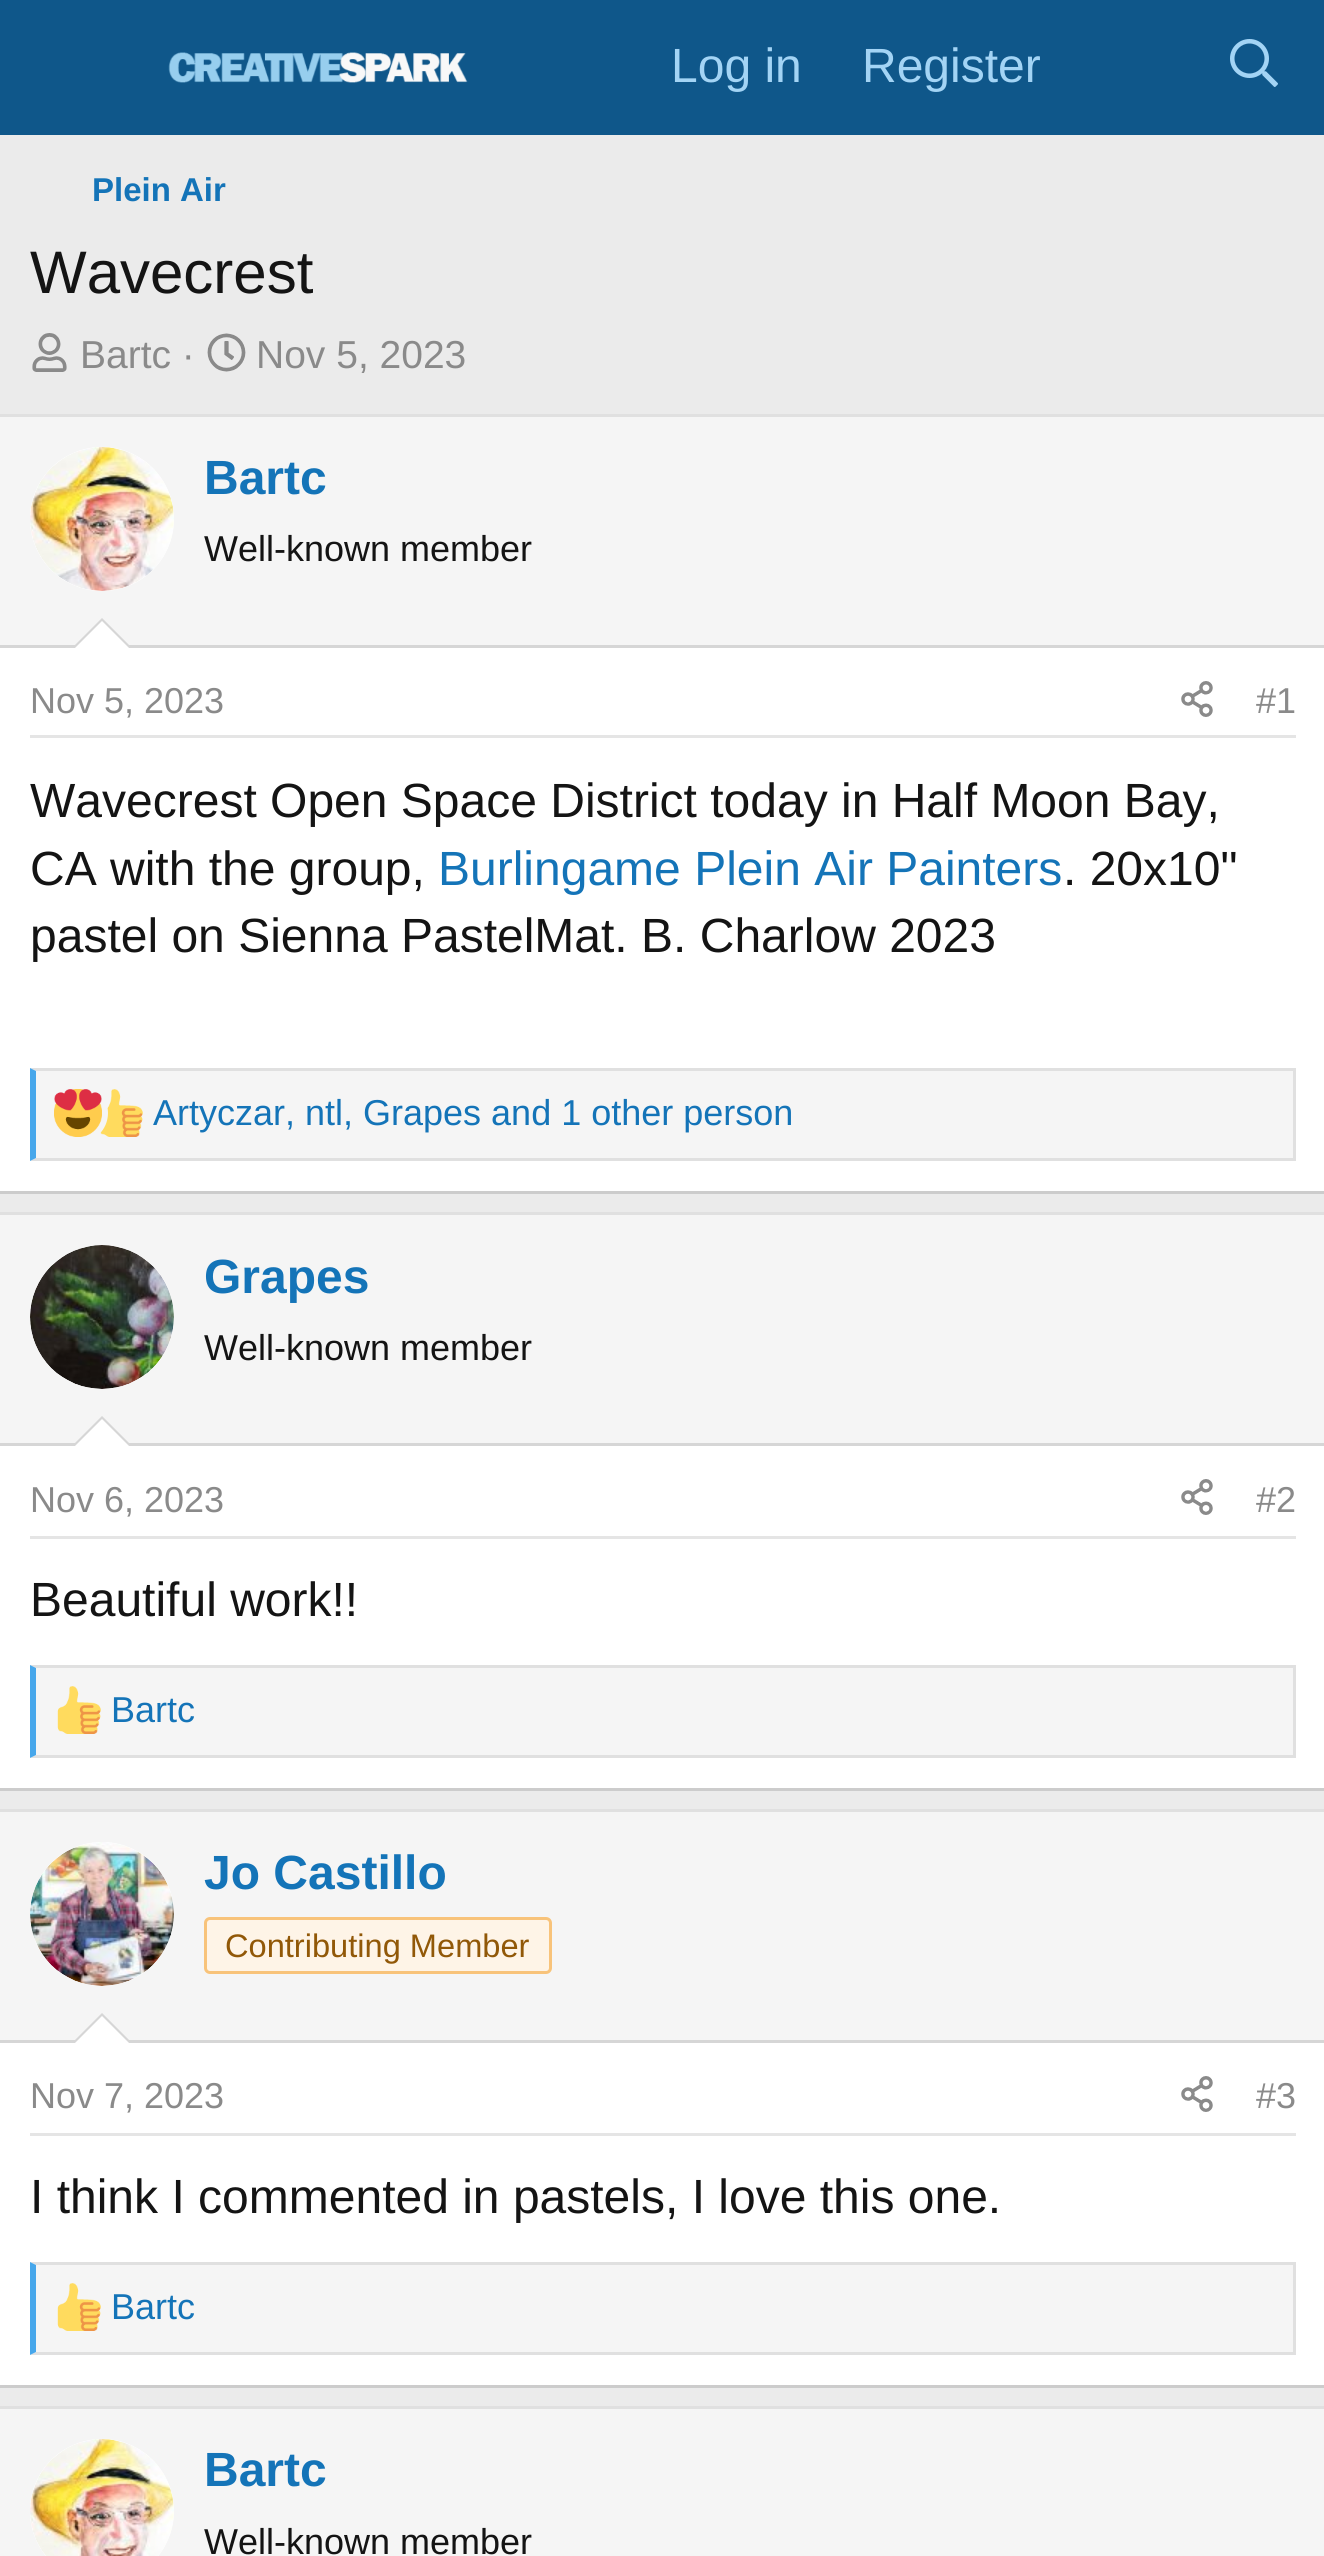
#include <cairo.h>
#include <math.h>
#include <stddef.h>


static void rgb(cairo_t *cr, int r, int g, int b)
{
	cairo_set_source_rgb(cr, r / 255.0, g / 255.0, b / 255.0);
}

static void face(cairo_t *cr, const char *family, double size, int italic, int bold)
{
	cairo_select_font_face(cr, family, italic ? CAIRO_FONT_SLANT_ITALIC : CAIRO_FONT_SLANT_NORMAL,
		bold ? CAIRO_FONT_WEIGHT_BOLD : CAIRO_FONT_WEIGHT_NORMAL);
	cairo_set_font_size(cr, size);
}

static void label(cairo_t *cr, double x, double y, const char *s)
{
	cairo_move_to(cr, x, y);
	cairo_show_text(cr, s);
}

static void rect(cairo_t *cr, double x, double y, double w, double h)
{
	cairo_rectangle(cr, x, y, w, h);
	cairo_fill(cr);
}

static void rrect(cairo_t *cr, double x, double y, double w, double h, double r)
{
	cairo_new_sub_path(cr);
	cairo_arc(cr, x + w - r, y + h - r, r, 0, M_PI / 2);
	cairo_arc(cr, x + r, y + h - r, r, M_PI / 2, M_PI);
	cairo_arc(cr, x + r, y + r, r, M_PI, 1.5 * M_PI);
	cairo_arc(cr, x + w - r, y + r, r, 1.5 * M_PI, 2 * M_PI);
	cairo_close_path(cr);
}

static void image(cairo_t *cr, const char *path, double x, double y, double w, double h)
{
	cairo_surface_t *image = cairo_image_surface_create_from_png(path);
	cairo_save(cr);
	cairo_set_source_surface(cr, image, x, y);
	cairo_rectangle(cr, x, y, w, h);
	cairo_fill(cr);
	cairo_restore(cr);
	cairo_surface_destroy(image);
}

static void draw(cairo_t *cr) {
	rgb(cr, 235, 235, 235);
	cairo_paint(cr);
	rgb(cr, 15, 87, 138);
	rect(cr, 0, 0, 1324, 135);
	image(cr, "image0.png", 168, 52, 300, 31);
	face(cr, "Liberation Sans", 48, 0, 0);
	rgb(cr, 163, 212, 245);
	label(cr, 671, 82, "Log in");
	label(cr, 862, 82, "Register");
	image(cr, "image1.png", 1230, 39, 48, 48);
	face(cr, "Liberation Sans", 33, 0, 1);
	rgb(cr, 20, 116, 184);
	label(cr, 92, 201, "Plein Air");
	face(cr, "Liberation Sans", 60, 0, 0);
	rgb(cr, 20, 20, 20);
	label(cr, 30, 293, "Wavecrest");
	image(cr, "image2.png", 32, 333, 35, 39);
	face(cr, "Liberation Sans", 39, 0, 0);
	rgb(cr, 138, 138, 138);
	label(cr, 80, 368, "Bartc ·");
	image(cr, "image3.png", 207, 333, 39, 39);
	label(cr, 256, 368, "Nov 5, 2023");
	rgb(cr, 255, 255, 255);
	rect(cr, 0, 648, 1324, 543);
	rgb(cr, 224, 224, 224);
	rect(cr, 0, 414, 1324, 3);
	rgb(cr, 204, 204, 204);
	rect(cr, 0, 1191, 1324, 3);
	rgb(cr, 245, 245, 245);
	rect(cr, 0, 417, 1324, 228);
	rgb(cr, 214, 214, 214);
	rect(cr, 0, 645, 1324, 3);
	rgb(cr, 255, 255, 255);
	cairo_new_path(cr);
	cairo_arc(cr, 102, 519, 72, 0, 2 * M_PI);
	cairo_fill(cr);
	image(cr, "image4.png", 30, 447, 144, 144);
	face(cr, "Liberation Sans", 48, 0, 1);
	rgb(cr, 20, 116, 184);
	label(cr, 204, 494, "Bartc");
	face(cr, "Liberation Sans", 36, 0, 0);
	rgb(cr, 20, 20, 20);
	label(cr, 204, 561, "Well-known member");
	rgb(cr, 214, 214, 214);
	cairo_new_path(cr);
	cairo_move_to(cr, 132, 648);
	cairo_line_to(cr, 72, 648);
	cairo_line_to(cr, 102, 618);
	cairo_close_path(cr);
	cairo_fill(cr);
	rgb(cr, 255, 255, 255);
	cairo_new_path(cr);
	cairo_move_to(cr, 129, 648);
	cairo_line_to(cr, 75, 648);
	cairo_line_to(cr, 102, 621);
	cairo_close_path(cr);
	cairo_fill(cr);
	rgb(cr, 229, 229, 229);
	rect(cr, 30, 735, 1266, 3);
	rgb(cr, 138, 138, 138);
	label(cr, 30, 713, "Nov 5, 2023");
	image(cr, "image5.png", 1181, 681, 32, 36);
	label(cr, 1256, 713, "#1");
	face(cr, "Liberation Sans", 48, 0, 0);
	rgb(cr, 20, 20, 20);
	label(cr, 30, 817, "Wavecrest Open Space District today in Half Moon Bay,");
	label(cr, 30, 885, "CA with the group,");
	rgb(cr, 20, 116, 184);
	label(cr, 438, 885, "Burlingame Plein Air Painters");
	rgb(cr, 20, 20, 20);
	label(cr, 1063, 885, ". 20x10\"");
	label(cr, 30, 952, "pastel on Sienna PastelMat. B. Charlow 2023");
	rgb(cr, 245, 245, 245);
	rect(cr, 36, 1071, 1257, 87);
	rgb(cr, 224, 224, 224);
	cairo_new_path(cr);
	cairo_move_to(cr, 30, 1068);
	cairo_line_to(cr, 1296, 1068);
	cairo_line_to(cr, 1293, 1071);
	cairo_line_to(cr, 36, 1071);
	cairo_close_path(cr);
	cairo_fill(cr);
	rect(cr, 1293, 1068, 3, 93);
	cairo_new_path(cr);
	cairo_move_to(cr, 1296, 1161);
	cairo_line_to(cr, 30, 1161);
	cairo_line_to(cr, 36, 1158);
	cairo_line_to(cr, 1293, 1158);
	cairo_close_path(cr);
	cairo_fill(cr);
	rgb(cr, 71, 167, 235);
	cairo_new_path(cr);
	cairo_move_to(cr, 30, 1161);
	cairo_line_to(cr, 30, 1068);
	cairo_line_to(cr, 36, 1071);
	cairo_line_to(cr, 36, 1158);
	cairo_close_path(cr);
	cairo_fill(cr);
	image(cr, "image7.png", 100, 1089, 43, 48);
	rgb(cr, 245, 245, 245);
	cairo_arc(cr, 78, 1113, 30, 0, 2 * M_PI);
	cairo_fill(cr);
	image(cr, "image6.png", 54, 1089, 48, 48);
	face(cr, "Liberation Sans", 36, 0, 0);
	rgb(cr, 20, 116, 184);
	label(cr, 153, 1125, "Artyczar, ntl, Grapes and 1 other person");
	rgb(cr, 255, 255, 255);
	rect(cr, 0, 1446, 1324, 342);
	rgb(cr, 224, 224, 224);
	rect(cr, 0, 1212, 1324, 3);
	rgb(cr, 204, 204, 204);
	rect(cr, 0, 1788, 1324, 3);
	rgb(cr, 245, 245, 245);
	rect(cr, 0, 1215, 1324, 228);
	rgb(cr, 214, 214, 214);
	rect(cr, 0, 1443, 1324, 3);
	rgb(cr, 255, 255, 255);
	cairo_new_path(cr);
	cairo_arc(cr, 102, 1317, 72, 0, 2 * M_PI);
	cairo_fill(cr);
	image(cr, "image8.png", 30, 1245, 144, 144);
	face(cr, "Liberation Sans", 48, 0, 1);
	rgb(cr, 20, 116, 184);
	label(cr, 204, 1293, "Grapes");
	face(cr, "Liberation Sans", 36, 0, 0);
	rgb(cr, 20, 20, 20);
	label(cr, 204, 1360, "Well-known member");
	rgb(cr, 214, 214, 214);
	cairo_new_path(cr);
	cairo_move_to(cr, 132, 1446);
	cairo_line_to(cr, 72, 1446);
	cairo_line_to(cr, 102, 1416);
	cairo_close_path(cr);
	cairo_fill(cr);
	rgb(cr, 255, 255, 255);
	cairo_new_path(cr);
	cairo_move_to(cr, 129, 1446);
	cairo_line_to(cr, 75, 1446);
	cairo_line_to(cr, 102, 1419);
	cairo_close_path(cr);
	cairo_fill(cr);
	rgb(cr, 229, 229, 229);
	rect(cr, 30, 1536, 1266, 3);
	rgb(cr, 138, 138, 138);
	label(cr, 30, 1512, "Nov 6, 2023");
	image(cr, "image5.png", 1181, 1479, 32, 36);
	label(cr, 1256, 1512, "#2");
	face(cr, "Liberation Sans", 48, 0, 0);
	rgb(cr, 20, 20, 20);
	label(cr, 30, 1616, "Beautiful work!!");
	rgb(cr, 245, 245, 245);
	rect(cr, 36, 1668, 1257, 87);
	rgb(cr, 224, 224, 224);
	cairo_new_path(cr);
	cairo_move_to(cr, 30, 1665);
	cairo_line_to(cr, 1296, 1665);
	cairo_line_to(cr, 1293, 1668);
	cairo_line_to(cr, 36, 1668);
	cairo_close_path(cr);
	cairo_fill(cr);
	rect(cr, 1293, 1665, 3, 93);
	cairo_new_path(cr);
	cairo_move_to(cr, 1296, 1758);
	cairo_line_to(cr, 30, 1758);
	cairo_line_to(cr, 36, 1755);
	cairo_line_to(cr, 1293, 1755);
	cairo_close_path(cr);
	cairo_fill(cr);
	rgb(cr, 71, 167, 235);
	cairo_new_path(cr);
	cairo_move_to(cr, 30, 1758);
	cairo_line_to(cr, 30, 1665);
	cairo_line_to(cr, 36, 1668);
	cairo_line_to(cr, 36, 1755);
	cairo_close_path(cr);
	cairo_fill(cr);
	image(cr, "image9.png", 57, 1686, 44, 48);
	face(cr, "Liberation Sans", 36, 0, 0);
	rgb(cr, 20, 116, 184);
	label(cr, 111, 1722, "Bartc");
	rgb(cr, 255, 255, 255);
	rect(cr, 0, 2043, 1324, 342);
	rgb(cr, 224, 224, 224);
	rect(cr, 0, 1809, 1324, 3);
	rgb(cr, 204, 204, 204);
	rect(cr, 0, 2385, 1324, 3);
	rgb(cr, 245, 245, 245);
	rect(cr, 0, 1812, 1324, 228);
	rgb(cr, 214, 214, 214);
	rect(cr, 0, 2040, 1324, 3);
	rgb(cr, 255, 255, 255);
	cairo_new_path(cr);
	cairo_arc(cr, 102, 1914, 72, 0, 2 * M_PI);
	cairo_fill(cr);
	image(cr, "image10.png", 30, 1842, 144, 144);
	face(cr, "Liberation Sans", 48, 0, 1);
	rgb(cr, 20, 116, 184);
	label(cr, 204, 1889, "Jo Castillo");
	rgb(cr, 254, 244, 231);
	rrect(cr, 205.5, 1918.5, 345, 54, 4.5);
	cairo_fill_preserve(cr);
	rgb(cr, 248, 195, 122);
	cairo_set_line_width(cr, 3);
	cairo_stroke(cr);
	face(cr, "Liberation Sans", 32.6, 0, 0);
	rgb(cr, 145, 88, 8);
	label(cr, 225, 1957, "Contributing Member");
	rgb(cr, 214, 214, 214);
	cairo_new_path(cr);
	cairo_move_to(cr, 132, 2043);
	cairo_line_to(cr, 72, 2043);
	cairo_line_to(cr, 102, 2013);
	cairo_close_path(cr);
	cairo_fill(cr);
	rgb(cr, 255, 255, 255);
	cairo_new_path(cr);
	cairo_move_to(cr, 129, 2043);
	cairo_line_to(cr, 75, 2043);
	cairo_line_to(cr, 102, 2016);
	cairo_close_path(cr);
	cairo_fill(cr);
	rgb(cr, 229, 229, 229);
	rect(cr, 30, 2133, 1266, 3);
	face(cr, "Liberation Sans", 36, 0, 0);
	rgb(cr, 138, 138, 138);
	label(cr, 30, 2108, "Nov 7, 2023");
	image(cr, "image5.png", 1181, 2076, 32, 36);
	label(cr, 1256, 2108, "#3");
	face(cr, "Liberation Sans", 48, 0, 0);
	rgb(cr, 20, 20, 20);
	label(cr, 30, 2213, "I think I commented in pastels, I love this one.");
	rgb(cr, 245, 245, 245);
	rect(cr, 36, 2265, 1257, 87);
	rgb(cr, 224, 224, 224);
	cairo_new_path(cr);
	cairo_move_to(cr, 30, 2262);
	cairo_line_to(cr, 1296, 2262);
	cairo_line_to(cr, 1293, 2265);
	cairo_line_to(cr, 36, 2265);
	cairo_close_path(cr);
	cairo_fill(cr);
	rect(cr, 1293, 2262, 3, 93);
	cairo_new_path(cr);
	cairo_move_to(cr, 1296, 2355);
	cairo_line_to(cr, 30, 2355);
	cairo_line_to(cr, 36, 2352);
	cairo_line_to(cr, 1293, 2352);
	cairo_close_path(cr);
	cairo_fill(cr);
	rgb(cr, 71, 167, 235);
	cairo_new_path(cr);
	cairo_move_to(cr, 30, 2355);
	cairo_line_to(cr, 30, 2262);
	cairo_line_to(cr, 36, 2265);
	cairo_line_to(cr, 36, 2352);
	cairo_close_path(cr);
	cairo_fill(cr);
	image(cr, "image9.png", 57, 2283, 44, 48);
	face(cr, "Liberation Sans", 36, 0, 0);
	rgb(cr, 20, 116, 184);
	label(cr, 111, 2319, "Bartc");
	rgb(cr, 224, 224, 224);
	rect(cr, 0, 2406, 1324, 3);
	rgb(cr, 245, 245, 245);
	rect(cr, 0, 2409, 1324, 147);
	rgb(cr, 255, 255, 255);
	cairo_new_path(cr);
	cairo_arc(cr, 102, 2511, 72, 0, 2 * M_PI);
	cairo_fill(cr);
	image(cr, "image11.png", 30, 2439, 144, 117);
	face(cr, "Liberation Sans", 48, 0, 1);
	rgb(cr, 20, 116, 184);
	label(cr, 204, 2486, "Bartc");
	face(cr, "Liberation Sans", 36, 0, 0);
	rgb(cr, 20, 20, 20);
	label(cr, 204, 2554, "Well-known member");
}

int main(void) {
	cairo_surface_t *surface = cairo_image_surface_create(CAIRO_FORMAT_RGB24, 1324, 2556);
	cairo_t *cr = cairo_create(surface);
	cairo_font_options_t *options = cairo_font_options_create();
	cairo_font_options_set_hint_metrics(options, CAIRO_HINT_METRICS_OFF);
	cairo_font_options_set_hint_style(options, CAIRO_HINT_STYLE_NONE);
	cairo_set_font_options(cr, options);
	cairo_set_miter_limit(cr, 4);
	draw(cr);
	cairo_surface_write_to_png(surface, "render.png");
	cairo_font_options_destroy(options);
	cairo_destroy(cr);
	cairo_surface_destroy(surface);
	return 0;
}
